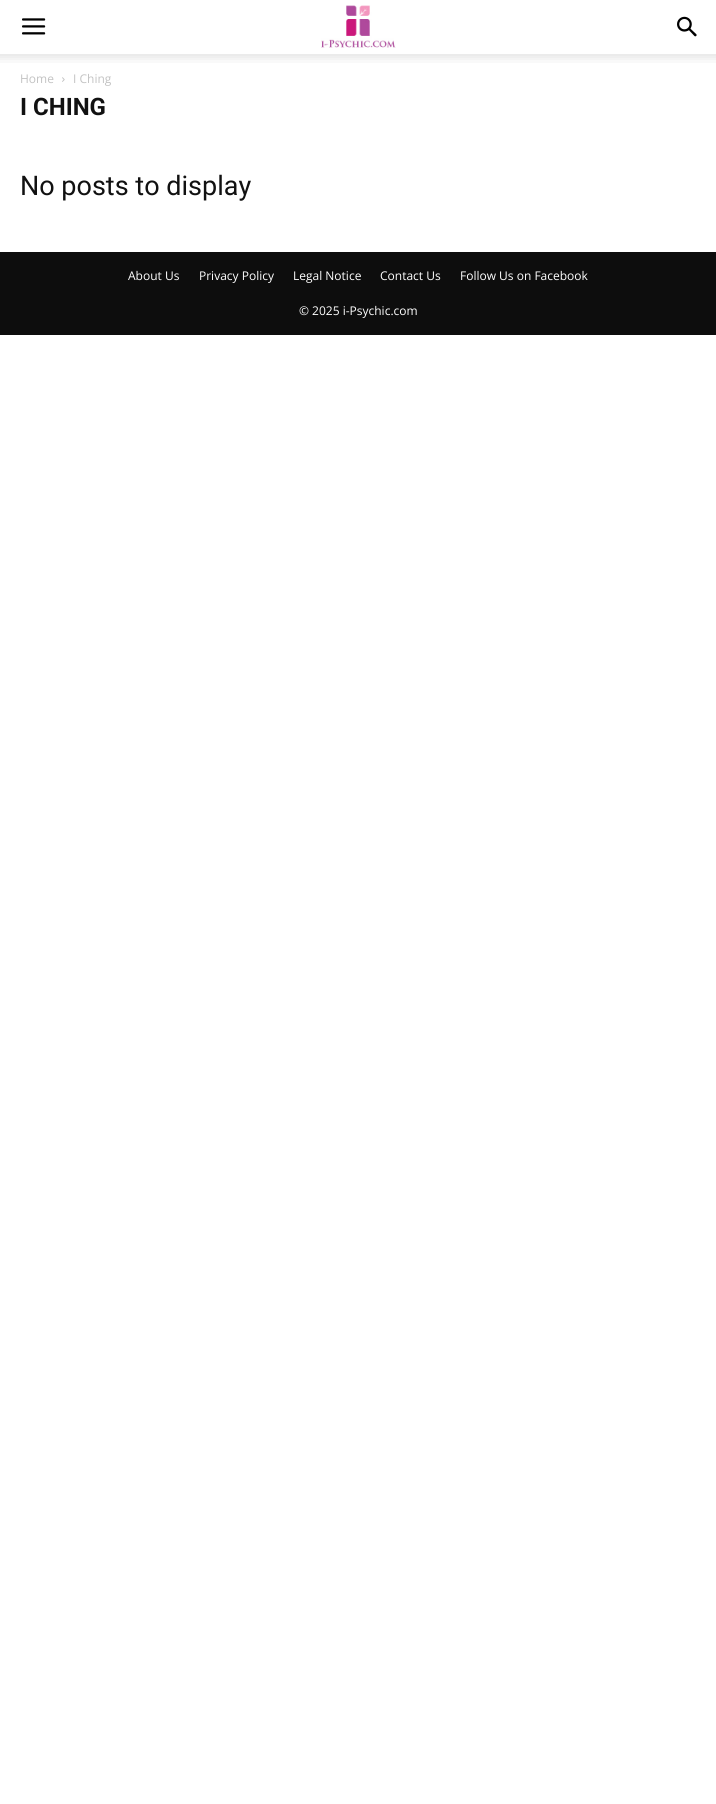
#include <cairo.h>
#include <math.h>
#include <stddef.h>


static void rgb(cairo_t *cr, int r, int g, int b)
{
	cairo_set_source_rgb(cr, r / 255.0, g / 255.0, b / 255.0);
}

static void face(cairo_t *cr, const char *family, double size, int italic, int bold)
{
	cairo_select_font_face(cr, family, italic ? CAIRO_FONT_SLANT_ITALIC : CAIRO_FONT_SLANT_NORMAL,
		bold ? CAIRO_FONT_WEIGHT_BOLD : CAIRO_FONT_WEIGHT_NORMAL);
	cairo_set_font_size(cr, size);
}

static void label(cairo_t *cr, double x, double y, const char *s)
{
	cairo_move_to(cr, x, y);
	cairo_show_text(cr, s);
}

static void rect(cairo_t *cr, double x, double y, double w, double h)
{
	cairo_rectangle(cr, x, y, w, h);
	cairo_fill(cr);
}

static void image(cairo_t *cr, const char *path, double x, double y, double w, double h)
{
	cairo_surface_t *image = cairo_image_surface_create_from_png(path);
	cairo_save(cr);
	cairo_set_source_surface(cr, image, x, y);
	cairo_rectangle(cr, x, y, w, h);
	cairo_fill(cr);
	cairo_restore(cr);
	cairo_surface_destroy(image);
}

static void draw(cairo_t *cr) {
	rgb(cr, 255, 255, 255);
	cairo_paint(cr);
	image(cr, "image0.png", 22, 18, 24, 17);
	image(cr, "image1.png", 321, 5, 75, 43);
	image(cr, "image2.png", 677, 16, 20, 21);
	image(cr, "image3.png", 0, 54, 716, 9);
	face(cr, "Open Sans", 12, 0, 0);
	rgb(cr, 195, 195, 195);
	label(cr, 20, 83, "Home");
	image(cr, "image4.png", 62, 77, 3, 5);
	label(cr, 73, 83, "I Ching");
	face(cr, "Roboto", 24, 0, 1);
	rgb(cr, 17, 17, 17);
	label(cr, 20, 115, "I CHING");
	face(cr, "Roboto", 27, 0, 0);
	label(cr, 20, 195, "No posts to display");
	rgb(cr, 13, 13, 13);
	rect(cr, 0, 252, 716, 83);
	face(cr, "Open Sans", 12, 0, 0);
	rgb(cr, 255, 255, 255);
	label(cr, 128, 280, "About Us");
	label(cr, 199, 280, "Privacy Policy");
	label(cr, 293, 280, "Legal Notice");
	label(cr, 380, 280, "Contact Us");
	label(cr, 460, 280, "Follow Us on Facebook");
	label(cr, 299, 315, "© 2025 i-Psychic.com");
}

int main(void) {
	cairo_surface_t *surface = cairo_image_surface_create(CAIRO_FORMAT_RGB24, 716, 1804);
	cairo_t *cr = cairo_create(surface);
	cairo_font_options_t *options = cairo_font_options_create();
	cairo_font_options_set_hint_metrics(options, CAIRO_HINT_METRICS_OFF);
	cairo_font_options_set_hint_style(options, CAIRO_HINT_STYLE_NONE);
	cairo_set_font_options(cr, options);
	cairo_set_miter_limit(cr, 4);
	draw(cr);
	cairo_surface_write_to_png(surface, "render.png");
	cairo_font_options_destroy(options);
	cairo_destroy(cr);
	cairo_surface_destroy(surface);
	return 0;
}
